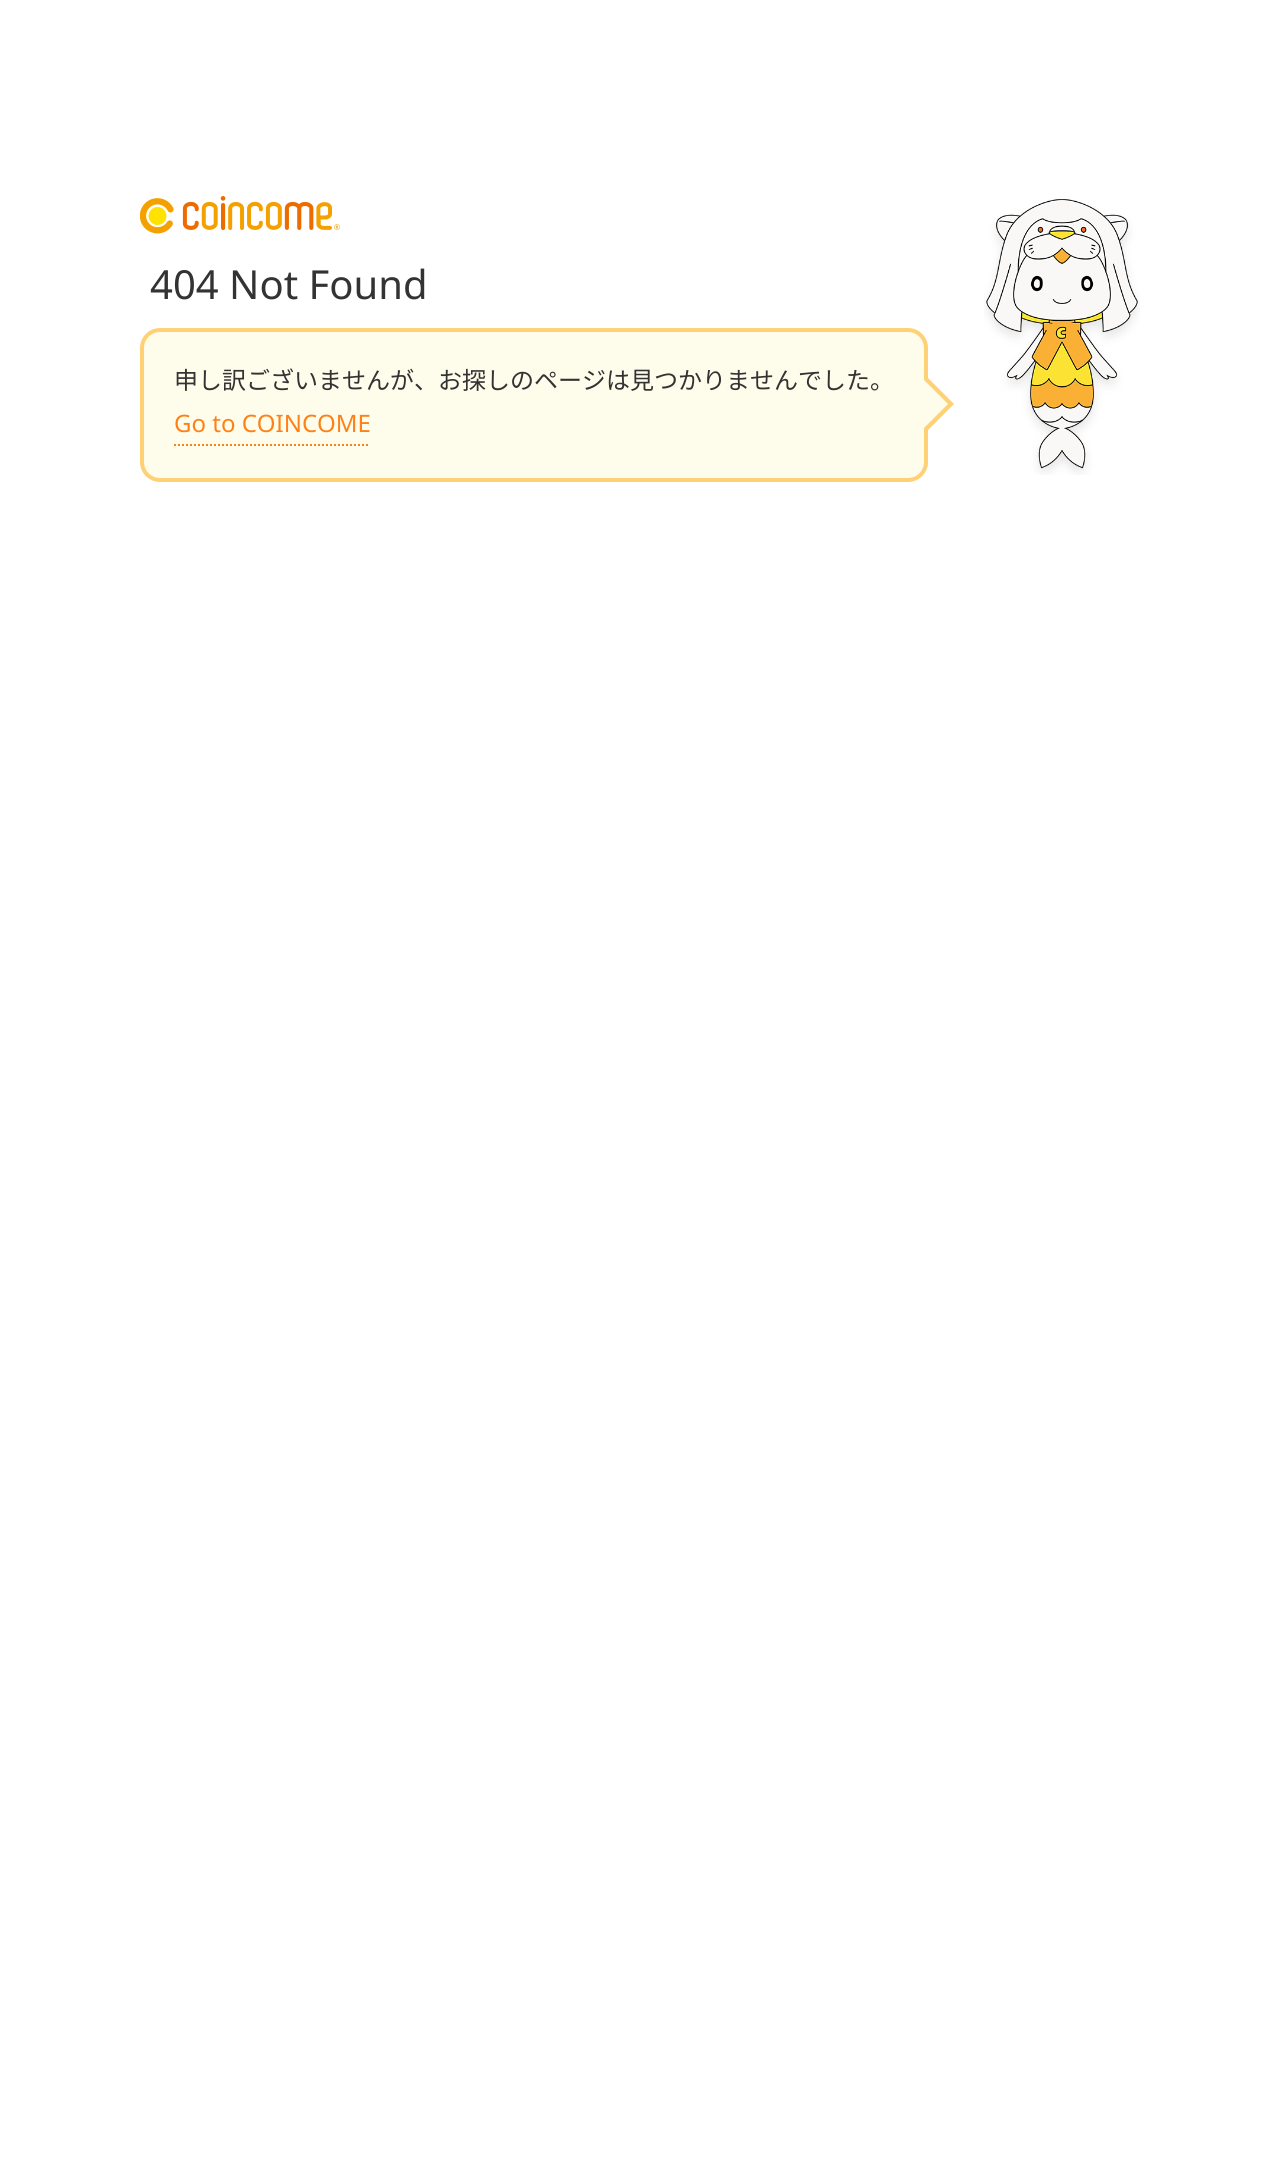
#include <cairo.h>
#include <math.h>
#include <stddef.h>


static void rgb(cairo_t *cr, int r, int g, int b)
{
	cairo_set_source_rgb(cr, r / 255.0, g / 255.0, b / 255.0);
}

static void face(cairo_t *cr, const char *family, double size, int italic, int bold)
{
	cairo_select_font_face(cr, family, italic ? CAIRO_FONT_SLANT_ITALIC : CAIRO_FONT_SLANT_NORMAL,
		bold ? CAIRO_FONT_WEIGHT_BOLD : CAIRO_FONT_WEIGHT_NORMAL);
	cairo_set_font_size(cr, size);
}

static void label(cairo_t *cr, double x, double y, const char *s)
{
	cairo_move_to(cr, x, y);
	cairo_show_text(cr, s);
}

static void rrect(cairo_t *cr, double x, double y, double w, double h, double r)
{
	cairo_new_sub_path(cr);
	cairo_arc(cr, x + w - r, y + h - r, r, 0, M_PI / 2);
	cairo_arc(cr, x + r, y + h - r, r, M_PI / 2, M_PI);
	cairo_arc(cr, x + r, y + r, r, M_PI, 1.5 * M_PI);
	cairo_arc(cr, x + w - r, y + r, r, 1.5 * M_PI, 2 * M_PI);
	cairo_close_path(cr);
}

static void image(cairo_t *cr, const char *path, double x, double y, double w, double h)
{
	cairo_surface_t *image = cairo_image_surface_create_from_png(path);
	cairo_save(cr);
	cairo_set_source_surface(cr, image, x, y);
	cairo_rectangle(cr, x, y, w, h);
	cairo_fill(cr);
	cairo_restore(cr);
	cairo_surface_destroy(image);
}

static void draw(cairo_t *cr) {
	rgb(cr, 255, 255, 255);
	cairo_paint(cr);
	image(cr, "image0.png", 140, 196, 200, 38);
	face(cr, "Noto Sans", 40, 0, 0);
	rgb(cr, 51, 51, 51);
	label(cr, 150, 299, "404 Not Found");
	rgb(cr, 254, 252, 235);
	rrect(cr, 142, 330, 784, 150, 18);
	cairo_fill_preserve(cr);
	rgb(cr, 255, 209, 119);
	cairo_set_line_width(cr, 4);
	cairo_stroke(cr);
	face(cr, "Noto Sans JP", 24, 0, 0);
	rgb(cr, 51, 51, 51);
	label(cr, 174, 389, "申し訳ございませんが、お探しのページは見つかりませんでした。");
	rgb(cr, 255, 209, 119);
	cairo_new_path(cr);
	cairo_move_to(cr, 924, 434);
	cairo_line_to(cr, 924, 374);
	cairo_line_to(cr, 954, 404);
	cairo_close_path(cr);
	cairo_fill(cr);
	rgb(cr, 254, 252, 235);
	cairo_new_path(cr);
	cairo_move_to(cr, 918, 434);
	cairo_line_to(cr, 918, 374);
	cairo_line_to(cr, 948, 404);
	cairo_close_path(cr);
	cairo_fill(cr);
	face(cr, "Noto Sans", 24, 0, 0);
	rgb(cr, 254, 129, 24);
	label(cr, 174, 432, "Go to COINCOME");
	cairo_new_path(cr);
	cairo_move_to(cr, 174, 445);
	cairo_line_to(cr, 370, 445);
	cairo_set_line_width(cr, 2);
	cairo_set_dash(cr, (double[]){2, 2}, 2, 0);
	cairo_stroke(cr);
	image(cr, "image1.png", 984, 199, 156, 276);
}

int main(void) {
	cairo_surface_t *surface = cairo_image_surface_create(CAIRO_FORMAT_RGB24, 1287, 2179);
	cairo_t *cr = cairo_create(surface);
	cairo_font_options_t *options = cairo_font_options_create();
	cairo_font_options_set_hint_metrics(options, CAIRO_HINT_METRICS_OFF);
	cairo_font_options_set_hint_style(options, CAIRO_HINT_STYLE_NONE);
	cairo_set_font_options(cr, options);
	cairo_set_miter_limit(cr, 4);
	draw(cr);
	cairo_surface_write_to_png(surface, "render.png");
	cairo_font_options_destroy(options);
	cairo_destroy(cr);
	cairo_surface_destroy(surface);
	return 0;
}
